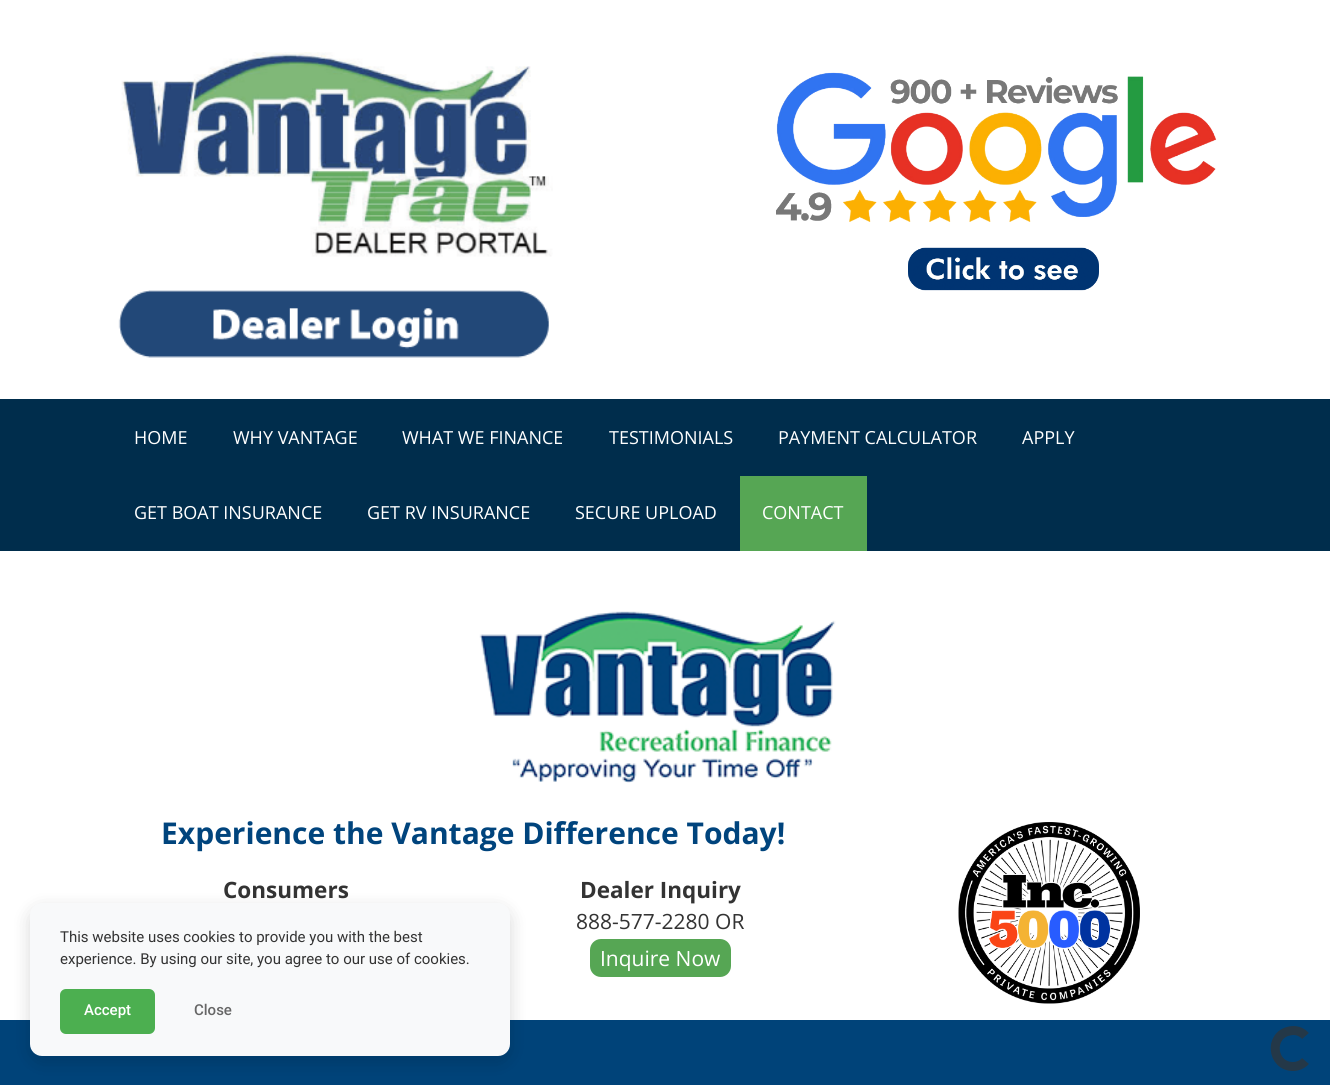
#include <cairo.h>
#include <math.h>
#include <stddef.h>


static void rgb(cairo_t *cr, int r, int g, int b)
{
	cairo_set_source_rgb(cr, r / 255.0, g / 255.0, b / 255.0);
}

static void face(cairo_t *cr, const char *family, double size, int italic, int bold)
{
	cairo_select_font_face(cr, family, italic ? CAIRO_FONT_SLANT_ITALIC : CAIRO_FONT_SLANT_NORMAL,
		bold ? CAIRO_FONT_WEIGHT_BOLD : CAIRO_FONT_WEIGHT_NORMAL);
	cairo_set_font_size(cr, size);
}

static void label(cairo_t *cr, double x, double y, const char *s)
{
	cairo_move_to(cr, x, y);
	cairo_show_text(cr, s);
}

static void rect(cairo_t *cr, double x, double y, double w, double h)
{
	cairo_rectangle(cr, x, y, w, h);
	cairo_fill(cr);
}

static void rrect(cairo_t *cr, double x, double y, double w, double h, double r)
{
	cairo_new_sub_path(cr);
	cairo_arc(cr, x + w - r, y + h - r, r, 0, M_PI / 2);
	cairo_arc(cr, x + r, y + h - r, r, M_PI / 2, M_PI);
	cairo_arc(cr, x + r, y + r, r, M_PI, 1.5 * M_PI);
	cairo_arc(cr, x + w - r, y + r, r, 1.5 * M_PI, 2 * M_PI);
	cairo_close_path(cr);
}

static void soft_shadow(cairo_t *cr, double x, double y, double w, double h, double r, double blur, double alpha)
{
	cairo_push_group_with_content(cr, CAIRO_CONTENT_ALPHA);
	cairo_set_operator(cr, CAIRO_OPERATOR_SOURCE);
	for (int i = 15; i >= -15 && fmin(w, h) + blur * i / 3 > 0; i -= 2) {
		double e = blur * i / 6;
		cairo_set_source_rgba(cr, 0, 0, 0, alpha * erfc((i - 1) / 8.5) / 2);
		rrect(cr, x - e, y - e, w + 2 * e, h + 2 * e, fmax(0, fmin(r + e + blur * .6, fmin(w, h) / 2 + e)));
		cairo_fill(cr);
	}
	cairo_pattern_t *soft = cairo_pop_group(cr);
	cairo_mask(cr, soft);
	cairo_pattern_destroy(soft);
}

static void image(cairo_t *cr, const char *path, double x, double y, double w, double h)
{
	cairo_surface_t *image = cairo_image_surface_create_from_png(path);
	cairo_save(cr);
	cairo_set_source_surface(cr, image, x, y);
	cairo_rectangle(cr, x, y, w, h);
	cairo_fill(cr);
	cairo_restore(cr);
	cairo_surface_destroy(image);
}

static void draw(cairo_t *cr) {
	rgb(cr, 255, 255, 255);
	cairo_paint(cr);
	image(cr, "image0.png", 118, 52, 435, 306);
	image(cr, "image1.png", 776, 72, 441, 219);
	rgb(cr, 0, 45, 76);
	rect(cr, 0, 399, 1330, 152);
	face(cr, "Open Sans", 18, 0, 0);
	rgb(cr, 255, 255, 255);
	label(cr, 134, 444, "HOME");
	label(cr, 233, 444, "WHY VANTAGE");
	label(cr, 402, 444, "WHAT WE FINANCE");
	label(cr, 609, 444, "TESTIMONIALS");
	label(cr, 778, 444, "PAYMENT CALCULATOR");
	label(cr, 1022, 444, "APPLY");
	label(cr, 134, 519, "GET BOAT INSURANCE");
	label(cr, 367, 519, "GET RV INSURANCE");
	label(cr, 575, 519, "SECURE UPLOAD");
	rgb(cr, 86, 166, 84);
	rect(cr, 740, 476, 127, 75);
	rgb(cr, 255, 255, 255);
	label(cr, 762, 519, "CONTACT");
	image(cr, "image2.png", 479, 611, 357, 172);
	face(cr, "Open Sans", 30, 0, 1);
	rgb(cr, 0, 68, 125);
	label(cr, 161, 844, "Experience the Vantage Difference Today!");
	face(cr, "Open Sans", 22.5, 0, 1);
	rgb(cr, 51, 51, 51);
	label(cr, 223, 898, "Consumers");
	label(cr, 580, 898, "Dealer Inquiry");
	face(cr, "Open Sans", 21, 0, 0);
	label(cr, 576, 929, "888-577-2280 OR");
	rgb(cr, 86, 166, 84);
	rrect(cr, 590, 939, 141, 38, 11);
	cairo_fill(cr);
	rgb(cr, 255, 255, 255);
	label(cr, 600, 966, "Inquire Now");
	image(cr, "image3.png", 958, 822, 182, 182);
	rgb(cr, 0, 67, 121);
	rect(cr, 0, 1020, 1330, 65);
	rgb(cr, 0, 0, 0);
	soft_shadow(cr, 30, 909, 480, 153, 12, 9, 0.15);
	rgb(cr, 248, 249, 250);
	rrect(cr, 30, 903, 480, 153, 12);
	cairo_fill(cr);
	face(cr, "Roboto", 15, 0, 0);
	rgb(cr, 51, 51, 51);
	label(cr, 60, 942, "This website uses cookies to provide you with the best");
	label(cr, 60, 964, "experience. By using our site, you agree to our use of cookies.");
	rgb(cr, 76, 175, 80);
	rrect(cr, 60, 989, 95, 45, 6);
	cairo_fill(cr);
	face(cr, "Roboto Medium", 15, 0, 0);
	rgb(cr, 255, 255, 255);
	label(cr, 84, 1015, "Accept");
	rgb(cr, 102, 102, 102);
	label(cr, 194, 1015, "Close");
	cairo_new_path(cr);
	cairo_move_to(cr, 1305.5, 1061);
	cairo_curve_to(cr, 1302.5, 1064.5, 1297.5, 1066.5, 1293, 1066.5);
	cairo_curve_to(cr, 1271.5, 1066.5, 1268.5, 1035, 1289.5, 1031);
	cairo_curve_to(cr, 1295.5, 1029.5, 1301.5, 1031.5, 1305.5, 1036);
	rgb(cr, 36, 56, 72);
	cairo_set_line_width(cr, 9);
	cairo_stroke(cr);
}

int main(void) {
	cairo_surface_t *surface = cairo_image_surface_create(CAIRO_FORMAT_RGB24, 1330, 1085);
	cairo_t *cr = cairo_create(surface);
	cairo_font_options_t *options = cairo_font_options_create();
	cairo_font_options_set_hint_metrics(options, CAIRO_HINT_METRICS_OFF);
	cairo_font_options_set_hint_style(options, CAIRO_HINT_STYLE_NONE);
	cairo_set_font_options(cr, options);
	cairo_set_miter_limit(cr, 4);
	draw(cr);
	cairo_surface_write_to_png(surface, "render.png");
	cairo_font_options_destroy(options);
	cairo_destroy(cr);
	cairo_surface_destroy(surface);
	return 0;
}
